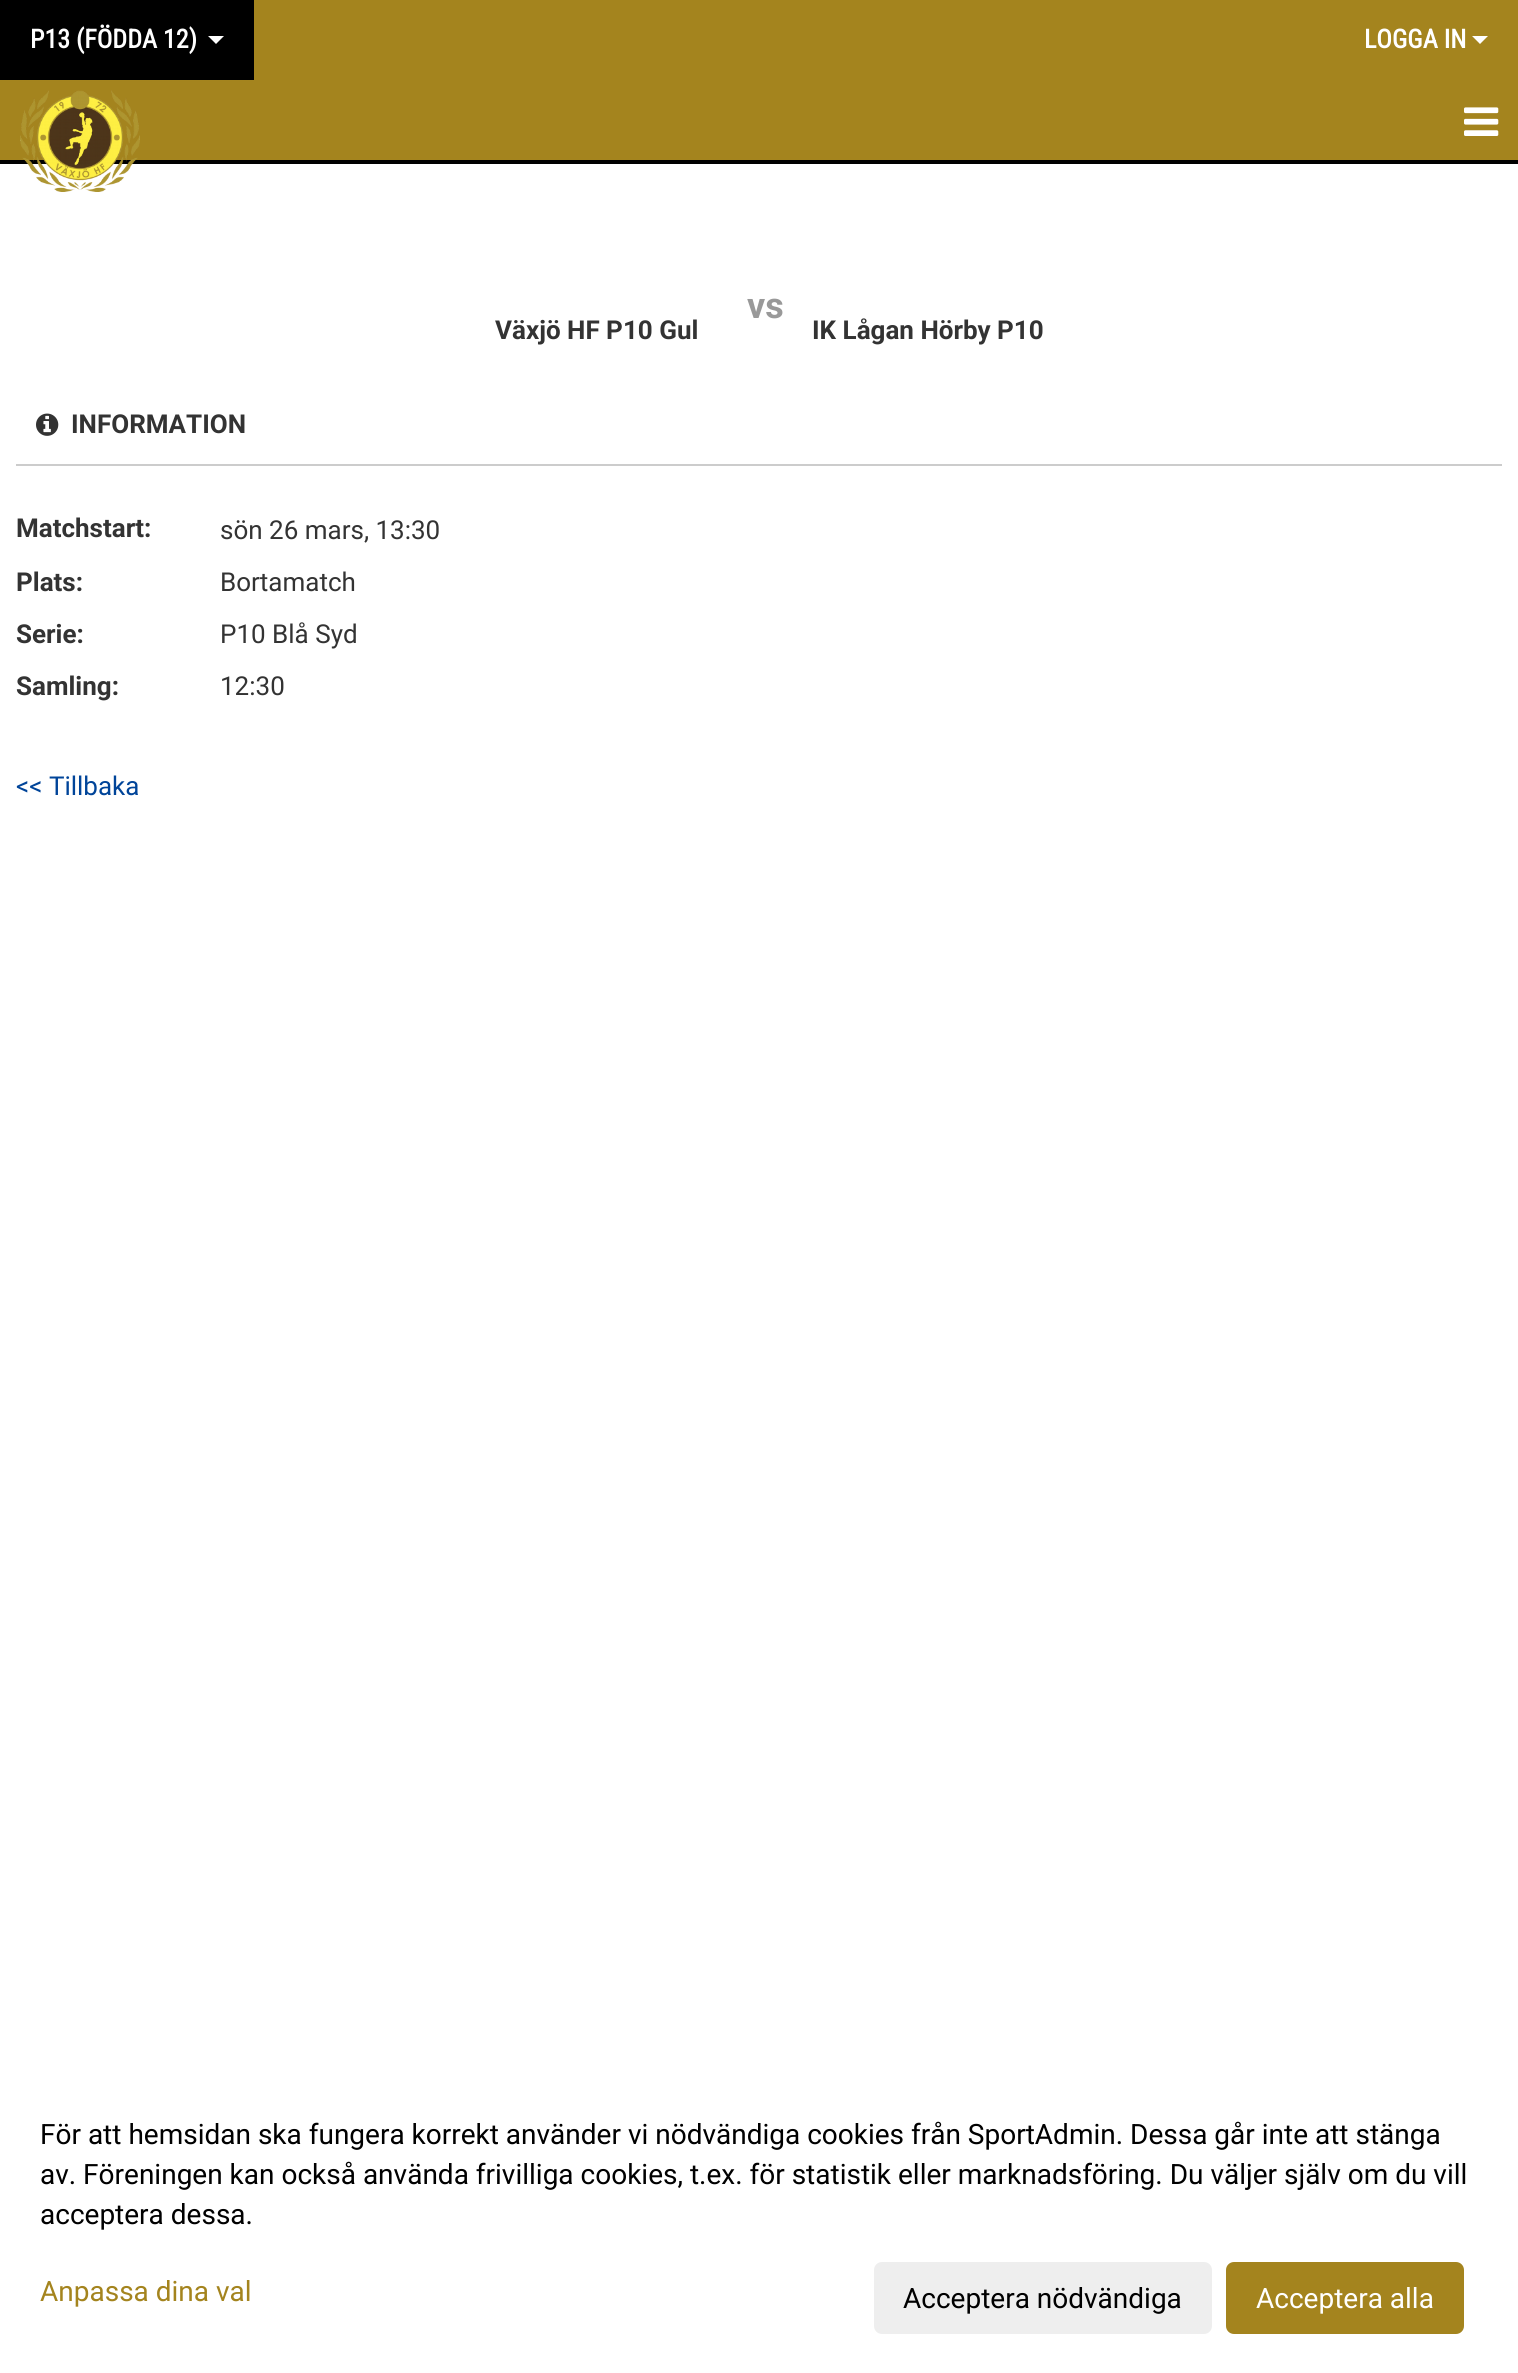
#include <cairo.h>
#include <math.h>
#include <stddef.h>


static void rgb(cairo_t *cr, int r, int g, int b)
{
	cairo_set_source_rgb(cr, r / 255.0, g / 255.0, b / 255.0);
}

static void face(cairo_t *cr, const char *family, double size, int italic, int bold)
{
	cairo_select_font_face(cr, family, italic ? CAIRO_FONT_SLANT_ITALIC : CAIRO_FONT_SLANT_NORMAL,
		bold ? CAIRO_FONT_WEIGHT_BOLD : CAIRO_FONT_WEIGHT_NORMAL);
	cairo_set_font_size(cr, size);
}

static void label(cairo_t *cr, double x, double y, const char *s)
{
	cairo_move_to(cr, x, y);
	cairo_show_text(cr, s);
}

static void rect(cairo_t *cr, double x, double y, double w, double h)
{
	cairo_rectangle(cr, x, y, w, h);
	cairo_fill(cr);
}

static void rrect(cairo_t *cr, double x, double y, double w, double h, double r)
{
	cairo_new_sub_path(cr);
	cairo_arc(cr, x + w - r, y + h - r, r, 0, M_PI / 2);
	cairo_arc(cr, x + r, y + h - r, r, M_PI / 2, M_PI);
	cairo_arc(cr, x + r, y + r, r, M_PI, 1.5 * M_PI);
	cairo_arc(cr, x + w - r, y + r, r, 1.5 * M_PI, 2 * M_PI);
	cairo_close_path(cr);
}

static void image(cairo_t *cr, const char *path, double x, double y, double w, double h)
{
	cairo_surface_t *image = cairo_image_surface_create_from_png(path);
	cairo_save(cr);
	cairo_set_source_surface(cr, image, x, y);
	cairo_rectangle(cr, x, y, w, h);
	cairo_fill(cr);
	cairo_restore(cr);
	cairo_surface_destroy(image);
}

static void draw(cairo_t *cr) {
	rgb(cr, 164, 132, 30);
	cairo_paint(cr);
	rgb(cr, 0, 0, 0);
	rect(cr, 0, 0, 254, 80);
	face(cr, "Roboto Condensed", 26, 0, 1);
	rgb(cr, 255, 255, 255);
	label(cr, 30, 48, "P13 (FÖDDA 12)");
	cairo_new_path(cr);
	cairo_move_to(cr, 208, 36);
	cairo_line_to(cr, 224, 36);
	cairo_line_to(cr, 216, 44);
	cairo_close_path(cr);
	cairo_fill(cr);
	label(cr, 1364, 48, "LOGGA IN");
	cairo_new_path(cr);
	cairo_move_to(cr, 1472, 36);
	cairo_line_to(cr, 1488, 36);
	cairo_line_to(cr, 1480, 44);
	cairo_close_path(cr);
	cairo_fill(cr);
	rect(cr, 0, 164, 1518, 2209);
	rgb(cr, 0, 0, 0);
	rect(cr, 0, 160, 1518, 4);
	image(cr, "image0.png", 20, 90, 120, 102);
	image(cr, "image1.png", 1464, 107, 35, 29);
	face(cr, "Roboto", 36, 0, 1);
	rgb(cr, 153, 153, 153);
	label(cr, 747, 318, "vs");
	face(cr, "Roboto", 26, 0, 1);
	rgb(cr, 51, 51, 51);
	label(cr, 495, 339, "Växjö HF P10 Gul");
	label(cr, 812, 339, "IK Lågan Hörby P10");
	rgb(cr, 204, 204, 204);
	rect(cr, 16, 464, 1486, 2);
	image(cr, "image2.png", 36, 413, 23, 23);
	rgb(cr, 51, 51, 51);
	label(cr, 71, 433, "INFORMATION");
	label(cr, 16, 537, "Matchstart:");
	face(cr, "Roboto", 26, 0, 0);
	label(cr, 220, 539, "sön 26 mars, 13:30");
	face(cr, "Roboto", 26, 0, 1);
	label(cr, 16, 591, "Plats:");
	face(cr, "Roboto", 26, 0, 0);
	label(cr, 220, 591, "Bortamatch");
	face(cr, "Roboto", 26, 0, 1);
	label(cr, 16, 643, "Serie:");
	face(cr, "Roboto", 26, 0, 0);
	label(cr, 220, 643, "P10 Blå Syd");
	face(cr, "Roboto", 26, 0, 1);
	label(cr, 16, 695, "Samling:");
	face(cr, "Roboto", 26, 0, 0);
	label(cr, 220, 695, "12:30");
	rgb(cr, 0, 68, 153);
	label(cr, 16, 795, "<< Tillbaka");
	face(cr, "Roboto", 28, 0, 0);
	rgb(cr, 0, 0, 0);
	label(cr, 40, 2144, "För att hemsidan ska fungera korrekt använder vi nödvändiga cookies från SportAdmin. Dessa går inte att stänga");
	label(cr, 40, 2184, "av. Föreningen kan också använda frivilliga cookies, t.ex. för statistik eller marknadsföring. Du väljer själv om du vill");
	label(cr, 40, 2224, "acceptera dessa.");
	rgb(cr, 164, 132, 30);
	label(cr, 40, 2301, "Anpassa dina val");
	rgb(cr, 238, 238, 238);
	rrect(cr, 874, 2262, 338, 72, 8);
	cairo_fill(cr);
	rgb(cr, 0, 0, 0);
	label(cr, 903, 2308, "Acceptera nödvändiga");
	rgb(cr, 164, 132, 30);
	rrect(cr, 1226, 2262, 238, 72, 8);
	cairo_fill(cr);
	rgb(cr, 255, 255, 255);
	label(cr, 1256, 2308, "Acceptera alla");
}

int main(void) {
	cairo_surface_t *surface = cairo_image_surface_create(CAIRO_FORMAT_RGB24, 1518, 2373);
	cairo_t *cr = cairo_create(surface);
	cairo_font_options_t *options = cairo_font_options_create();
	cairo_font_options_set_hint_metrics(options, CAIRO_HINT_METRICS_OFF);
	cairo_font_options_set_hint_style(options, CAIRO_HINT_STYLE_NONE);
	cairo_set_font_options(cr, options);
	cairo_set_miter_limit(cr, 4);
	draw(cr);
	cairo_surface_write_to_png(surface, "render.png");
	cairo_font_options_destroy(options);
	cairo_destroy(cr);
	cairo_surface_destroy(surface);
	return 0;
}
